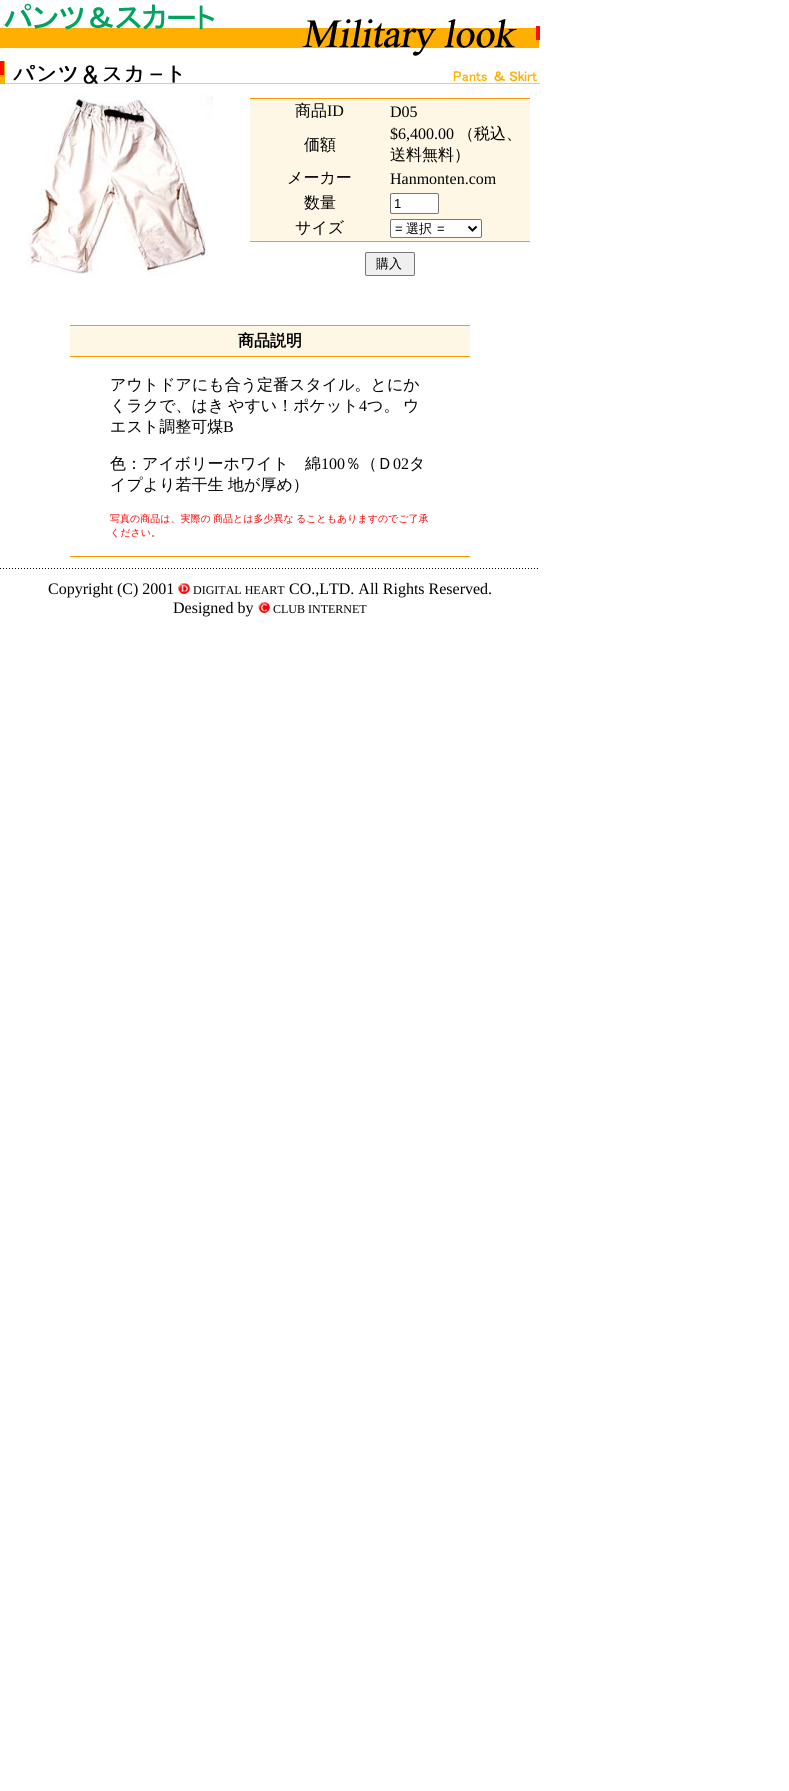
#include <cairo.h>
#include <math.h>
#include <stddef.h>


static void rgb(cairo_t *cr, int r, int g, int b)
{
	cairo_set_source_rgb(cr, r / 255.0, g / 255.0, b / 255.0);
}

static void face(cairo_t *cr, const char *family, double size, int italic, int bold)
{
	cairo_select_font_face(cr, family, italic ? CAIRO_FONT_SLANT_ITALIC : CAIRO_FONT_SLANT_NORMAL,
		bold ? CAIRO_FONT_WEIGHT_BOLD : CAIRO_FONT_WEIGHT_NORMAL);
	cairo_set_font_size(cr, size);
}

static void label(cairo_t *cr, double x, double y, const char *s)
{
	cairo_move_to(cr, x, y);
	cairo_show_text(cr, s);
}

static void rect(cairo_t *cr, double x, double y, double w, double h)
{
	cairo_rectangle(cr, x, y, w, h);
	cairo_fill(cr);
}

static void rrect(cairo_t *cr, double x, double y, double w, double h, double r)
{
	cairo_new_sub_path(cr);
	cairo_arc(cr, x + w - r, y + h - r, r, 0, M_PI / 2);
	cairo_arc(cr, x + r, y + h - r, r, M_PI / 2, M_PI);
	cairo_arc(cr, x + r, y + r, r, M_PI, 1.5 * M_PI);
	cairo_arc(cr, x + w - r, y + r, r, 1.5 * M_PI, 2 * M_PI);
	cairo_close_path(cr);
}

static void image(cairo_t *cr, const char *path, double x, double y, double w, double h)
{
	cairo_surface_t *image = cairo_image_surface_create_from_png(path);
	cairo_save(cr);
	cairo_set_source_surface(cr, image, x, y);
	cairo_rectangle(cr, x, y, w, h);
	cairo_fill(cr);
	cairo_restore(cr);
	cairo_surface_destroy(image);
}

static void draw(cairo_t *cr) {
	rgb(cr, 255, 255, 255);
	cairo_paint(cr);
	image(cr, "image0.png", 0, 3, 540, 53);
	image(cr, "image1.png", 0, 61, 540, 23);
	image(cr, "image2.png", 27, 94, 186, 181);
	rgb(cr, 255, 153, 0);
	rect(cr, 250, 98, 280, 1);
	rgb(cr, 255, 247, 229);
	rect(cr, 250, 99, 280, 142);
	face(cr, "WenQuanYi Zen Hei Medium", 16, 0, 0);
	rgb(cr, 0, 0, 0);
	label(cr, 295, 116, "商品");
	face(cr, "Liberation Serif", 16, 0, 0);
	label(cr, 327, 116, "ID");
	label(cr, 390, 117, "D05");
	face(cr, "WenQuanYi Zen Hei Medium", 16, 0, 0);
	label(cr, 304, 150, "価額");
	face(cr, "Liberation Serif", 16, 0, 0);
	label(cr, 390, 139, "$6,400.00");
	face(cr, "WenQuanYi Zen Hei Medium", 16, 0, 0);
	label(cr, 458, 139, "（税込、");
	label(cr, 390, 160, "送料無料）");
	label(cr, 287, 183, "メーカー");
	face(cr, "Liberation Serif", 16, 0, 0);
	label(cr, 390, 184, "Hanmonten.com");
	face(cr, "WenQuanYi Zen Hei Medium", 16, 0, 0);
	label(cr, 304, 208, "数量");
	rgb(cr, 255, 255, 255);
	rrect(cr, 390.5, 193.5, 48, 20, 1.5);
	cairo_fill_preserve(cr);
	rgb(cr, 118, 118, 118);
	cairo_set_line_width(cr, 1);
	cairo_stroke(cr);
	face(cr, "Liberation Sans", 13, 0, 0);
	rgb(cr, 0, 0, 0);
	label(cr, 394, 208, "1");
	face(cr, "WenQuanYi Zen Hei Medium", 16, 0, 0);
	label(cr, 295, 233, "サイズ");
	rgb(cr, 255, 255, 255);
	rrect(cr, 390.5, 219.5, 91, 18, 1.5);
	cairo_fill_preserve(cr);
	rgb(cr, 118, 118, 118);
	cairo_stroke(cr);
	cairo_new_path(cr);
	cairo_move_to(cr, 468.5, 226.5);
	cairo_line_to(cr, 472.5, 230.5);
	cairo_line_to(cr, 476.5, 226.5);
	rgb(cr, 0, 0, 0);
	cairo_set_line_width(cr, 2);
	cairo_stroke(cr);
	face(cr, "Liberation Sans", 13, 0, 0);
	label(cr, 395, 233, "=");
	face(cr, "WenQuanYi Zen Hei Medium", 13, 0, 0);
	label(cr, 406, 233, "選択");
	face(cr, "Liberation Sans", 13, 0, 0);
	label(cr, 437, 233, "=");
	rgb(cr, 255, 153, 0);
	rect(cr, 250, 241, 280, 1);
	rgb(cr, 239, 239, 239);
	rrect(cr, 365.5, 252.5, 49, 23, 1.5);
	cairo_fill_preserve(cr);
	rgb(cr, 118, 118, 118);
	cairo_set_line_width(cr, 1);
	cairo_stroke(cr);
	face(cr, "WenQuanYi Zen Hei Medium", 13, 0, 0);
	rgb(cr, 0, 0, 0);
	label(cr, 376, 268, "購入");
	rgb(cr, 255, 153, 0);
	rect(cr, 70, 325, 400, 1);
	rgb(cr, 255, 247, 229);
	rect(cr, 70, 326, 400, 30);
	face(cr, "WenQuanYi Zen Hei", 16, 0, 1);
	rgb(cr, 0, 0, 0);
	label(cr, 238, 346, "商品説明");
	rgb(cr, 255, 153, 0);
	rect(cr, 70, 356, 400, 1);
	face(cr, "WenQuanYi Zen Hei Medium", 16, 0, 0);
	rgb(cr, 0, 0, 0);
	label(cr, 110, 390, "アウトドアにも合う定番スタイル。とにか");
	label(cr, 110, 411, "くラクで、はき");
	label(cr, 228, 411, "やすい！ポケット");
	face(cr, "Liberation Serif", 16, 0, 0);
	label(cr, 359, 411, "4");
	face(cr, "WenQuanYi Zen Hei Medium", 16, 0, 0);
	label(cr, 367, 411, "つ。");
	label(cr, 403, 411, "ウ");
	label(cr, 110, 432, "エスト調整可煤");
	face(cr, "Liberation Serif", 16, 0, 0);
	label(cr, 223, 432, "B");
	face(cr, "WenQuanYi Zen Hei Medium", 16, 0, 0);
	label(cr, 110, 469, "色：アイボリーホワイト　綿");
	face(cr, "Liberation Serif", 16, 0, 0);
	label(cr, 321, 469, "100");
	face(cr, "WenQuanYi Zen Hei Medium", 16, 0, 0);
	label(cr, 345, 469, "％（Ｄ");
	face(cr, "Liberation Serif", 16, 0, 0);
	label(cr, 393, 469, "02");
	face(cr, "WenQuanYi Zen Hei Medium", 16, 0, 0);
	label(cr, 409, 469, "タ");
	label(cr, 110, 490, "イプより若干生");
	label(cr, 228, 490, "地が厚め）");
	face(cr, "WenQuanYi Zen Hei Medium", 10, 0, 0);
	rgb(cr, 255, 0, 0);
	label(cr, 110, 522, "写真の商品は、実際の");
	label(cr, 213, 522, "商品とは多少異な");
	label(cr, 296, 522, "ることもありますのでご了承");
	label(cr, 110, 536, "ください。");
	rgb(cr, 255, 153, 0);
	rect(cr, 70, 556, 400, 1);
	image(cr, "image3.png", 0, 568, 538, 1);
	face(cr, "Liberation Serif", 16, 0, 0);
	rgb(cr, 0, 0, 0);
	label(cr, 48, 594, "Copyright (C) 2001");
	image(cr, "image4.png", 178, 583, 12, 11);
	face(cr, "Liberation Serif", 12, 0, 0);
	label(cr, 193, 594, "DIGITAL HEART");
	face(cr, "Liberation Serif", 16, 0, 0);
	label(cr, 289, 594, "CO.,LTD. All Rights Reserved.");
	label(cr, 173, 613, "Designed by");
	image(cr, "image5.png", 258, 602, 12, 11);
	face(cr, "Liberation Serif", 12, 0, 0);
	label(cr, 273, 613, "CLUB INTERNET");
}

int main(void) {
	cairo_surface_t *surface = cairo_image_surface_create(CAIRO_FORMAT_RGB24, 789, 1791);
	cairo_t *cr = cairo_create(surface);
	cairo_font_options_t *options = cairo_font_options_create();
	cairo_font_options_set_hint_metrics(options, CAIRO_HINT_METRICS_OFF);
	cairo_font_options_set_hint_style(options, CAIRO_HINT_STYLE_NONE);
	cairo_set_font_options(cr, options);
	cairo_set_miter_limit(cr, 4);
	draw(cr);
	cairo_surface_write_to_png(surface, "render.png");
	cairo_font_options_destroy(options);
	cairo_destroy(cr);
	cairo_surface_destroy(surface);
	return 0;
}
